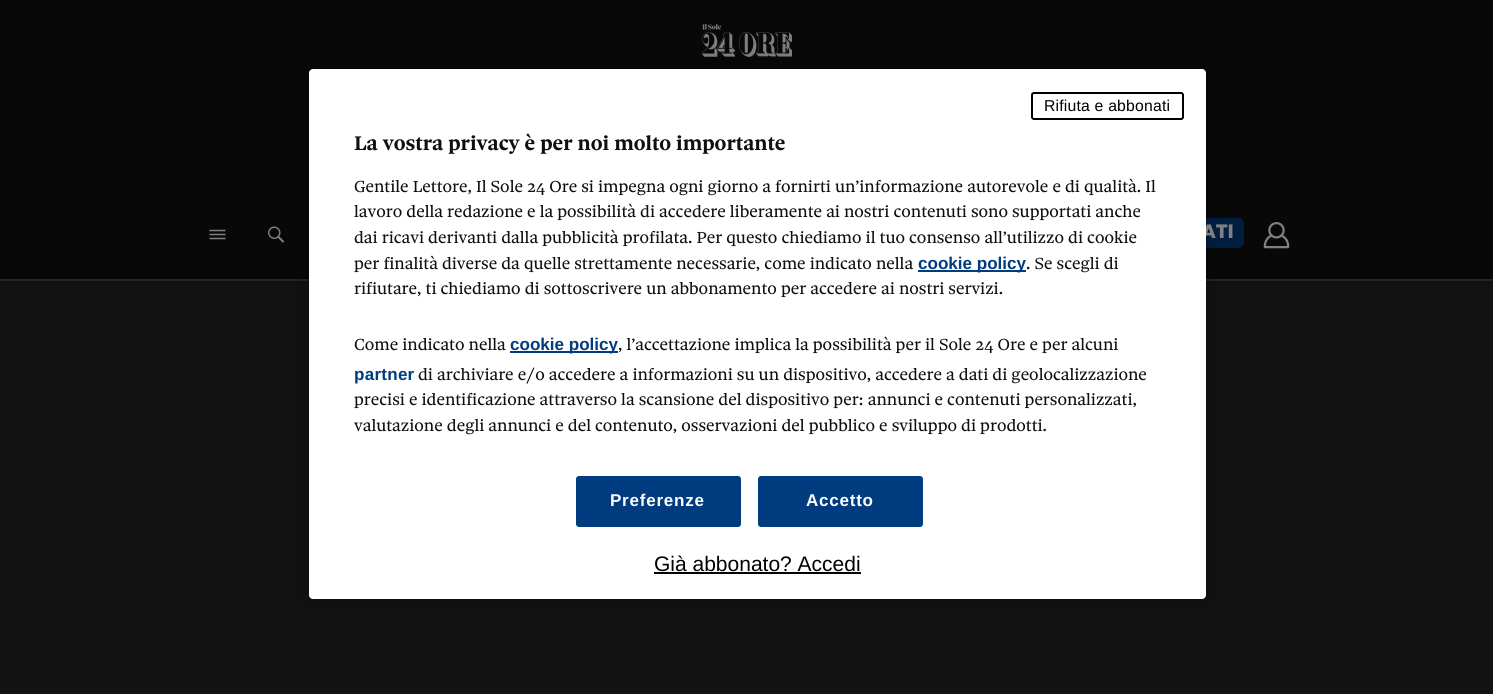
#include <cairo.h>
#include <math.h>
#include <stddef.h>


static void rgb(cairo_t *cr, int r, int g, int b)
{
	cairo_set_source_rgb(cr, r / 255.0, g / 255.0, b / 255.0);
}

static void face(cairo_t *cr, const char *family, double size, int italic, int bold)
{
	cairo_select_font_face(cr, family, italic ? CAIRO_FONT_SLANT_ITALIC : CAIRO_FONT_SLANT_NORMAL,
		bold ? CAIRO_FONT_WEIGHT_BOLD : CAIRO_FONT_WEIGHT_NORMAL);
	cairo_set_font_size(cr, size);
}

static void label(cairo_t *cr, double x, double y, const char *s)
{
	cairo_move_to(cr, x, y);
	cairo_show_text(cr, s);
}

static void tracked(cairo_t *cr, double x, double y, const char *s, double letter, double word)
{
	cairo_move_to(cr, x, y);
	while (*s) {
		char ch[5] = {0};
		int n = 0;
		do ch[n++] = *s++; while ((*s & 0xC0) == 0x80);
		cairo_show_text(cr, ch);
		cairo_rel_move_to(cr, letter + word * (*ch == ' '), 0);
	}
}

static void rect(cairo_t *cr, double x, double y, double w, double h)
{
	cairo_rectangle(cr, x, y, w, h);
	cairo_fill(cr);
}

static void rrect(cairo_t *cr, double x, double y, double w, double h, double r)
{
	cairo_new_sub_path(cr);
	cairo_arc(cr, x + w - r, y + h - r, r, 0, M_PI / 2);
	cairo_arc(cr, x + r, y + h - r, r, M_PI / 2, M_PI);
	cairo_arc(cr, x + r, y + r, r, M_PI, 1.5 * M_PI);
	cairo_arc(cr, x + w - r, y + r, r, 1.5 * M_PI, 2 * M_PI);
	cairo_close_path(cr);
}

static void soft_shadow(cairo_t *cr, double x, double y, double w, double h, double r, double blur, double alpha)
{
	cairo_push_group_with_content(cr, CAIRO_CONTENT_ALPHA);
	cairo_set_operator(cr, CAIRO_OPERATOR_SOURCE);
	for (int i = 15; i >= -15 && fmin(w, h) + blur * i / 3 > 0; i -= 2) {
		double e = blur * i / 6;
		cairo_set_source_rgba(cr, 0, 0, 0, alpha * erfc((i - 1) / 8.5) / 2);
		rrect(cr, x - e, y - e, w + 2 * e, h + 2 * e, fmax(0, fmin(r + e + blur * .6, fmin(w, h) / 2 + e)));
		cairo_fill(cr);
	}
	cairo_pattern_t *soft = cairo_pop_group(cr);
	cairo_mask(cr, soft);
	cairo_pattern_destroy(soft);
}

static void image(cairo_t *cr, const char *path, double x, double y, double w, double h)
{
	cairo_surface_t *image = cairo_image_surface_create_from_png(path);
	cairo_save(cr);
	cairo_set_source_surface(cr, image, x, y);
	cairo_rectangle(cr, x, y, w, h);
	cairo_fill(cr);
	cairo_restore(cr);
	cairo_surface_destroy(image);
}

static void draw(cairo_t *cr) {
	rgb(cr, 8, 8, 8);
	cairo_paint(cr);
	rgb(cr, 37, 37, 37);
	rect(cr, 0, 279, 1493, 2);
	image(cr, "image0.png", 702, 24, 90, 33);
	image(cr, "image2.png", 268, 226, 16, 17);
	rgb(cr, 0, 30, 64);
	rrect(cr, 1124, 218, 120, 30, 6);
	cairo_fill(cr);
	rgb(cr, 18, 18, 18);
	rect(cr, 0, 284, 1493, 410);
	rgb(cr, 16, 16, 16);
	rect(cr, 0, 281, 1493, 3);
	rgb(cr, 0, 0, 0);
	soft_shadow(cr, 309, 69, 897, 530, 4, 13.5, 0.2);
	face(cr, "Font", 20, 0, 1);
	rgb(cr, 128, 128, 128);
	label(cr, 1202, 238, "ATI");
	rgb(cr, 255, 255, 255);
	rrect(cr, 309, 69, 897, 530, 4);
	cairo_fill(cr);
	rrect(cr, 1032, 93, 151, 26, 2);
	rgb(cr, 0, 0, 0);
	cairo_stroke(cr);
	face(cr, "Liberation Sans", 15.75, 0, 0);
	tracked(cr, 1044, 111, "Rifiuta e abbonati", 0.2, 0);
	face(cr, "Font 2", 21, 0, 1);
	rgb(cr, 15, 15, 15);
	label(cr, 354, 150, "La vostra privacy è per noi molto importante");
	face(cr, "Font", 17.05, 0, 0);
	label(cr, 354, 192, "Gentile Lettore, Il Sole 24 Ore si impegna ogni giorno a fornirti un’informazione autorevole e di qualità. Il");
	label(cr, 354, 217, "lavoro della redazione e la possibilità di accedere liberamente ai nostri contenuti sono supportati anche");
	label(cr, 354, 243, "dai ricavi derivanti dalla pubblicità profilata. Per questo chiediamo il tuo consenso all’utilizzo di cookie");
	label(cr, 354, 269, "per finalità diverse da quelle strettamente necessarie, come indicato nella");
	rgb(cr, 0, 60, 127);
	rect(cr, 918, 270, 108, 2);
	face(cr, "Liberation Sans", 17.05, 0, 1);
	label(cr, 918, 269, "cookie policy");
	face(cr, "Font", 17.05, 0, 0);
	rgb(cr, 15, 15, 15);
	label(cr, 1026, 269, ". Se scegli di");
	label(cr, 354, 294, "rifiutare, ti chiediamo di sottoscrivere un abbonamento per accedere ai nostri servizi.");
	label(cr, 354, 350, "Come indicato nella");
	rgb(cr, 0, 60, 127);
	rect(cr, 510, 351, 108, 2);
	face(cr, "Liberation Sans", 17.05, 0, 1);
	label(cr, 510, 350, "cookie policy");
	face(cr, "Font", 17.05, 0, 0);
	rgb(cr, 15, 15, 15);
	label(cr, 618, 350, ", l’accettazione implica la possibilità per il Sole 24 Ore e per alcuni");
	face(cr, "Liberation Sans", 17.05, 0, 1);
	rgb(cr, 0, 60, 127);
	tracked(cr, 354, 380, "partner", 0.25, 0);
	face(cr, "Font", 17.05, 0, 0);
	rgb(cr, 15, 15, 15);
	label(cr, 418, 380, "di archiviare e/o accedere a informazioni su un dispositivo, accedere a dati di geolocalizzazione");
	label(cr, 354, 405, "precisi e identificazione attraverso la scansione del dispositivo per: annunci e contenuti personalizzati,");
	label(cr, 354, 431, "valutazione degli annunci e del contenuto, osservazioni del pubblico e sviluppo di prodotti.");
	rgb(cr, 0, 60, 127);
	rrect(cr, 577, 477, 163, 49, 2);
	cairo_fill_preserve(cr);
	cairo_stroke(cr);
	face(cr, "Liberation Sans", 17.05, 0, 1);
	rgb(cr, 255, 255, 255);
	tracked(cr, 610, 506, "Preferenze", 0.75, 0);
	rgb(cr, 0, 60, 127);
	rrect(cr, 759, 477, 163, 49, 2);
	cairo_fill_preserve(cr);
	cairo_stroke(cr);
	rgb(cr, 255, 255, 255);
	tracked(cr, 806, 506, "Accetto", 0.75, 0);
	face(cr, "Liberation Sans", 21, 0, 0);
	rgb(cr, 0, 0, 0);
	label(cr, 654, 571, "Già abbonato? Accedi");
	rect(cr, 654, 572, 207, 2);
	image(cr, "image1.png", 209, 229, 17, 11);
	image(cr, "image3.png", 1263, 222, 27, 27);
}

int main(void) {
	cairo_surface_t *surface = cairo_image_surface_create(CAIRO_FORMAT_RGB24, 1493, 694);
	cairo_t *cr = cairo_create(surface);
	cairo_font_options_t *options = cairo_font_options_create();
	cairo_font_options_set_hint_metrics(options, CAIRO_HINT_METRICS_OFF);
	cairo_font_options_set_hint_style(options, CAIRO_HINT_STYLE_NONE);
	cairo_set_font_options(cr, options);
	cairo_set_miter_limit(cr, 4);
	draw(cr);
	cairo_surface_write_to_png(surface, "render.png");
	cairo_font_options_destroy(options);
	cairo_destroy(cr);
	cairo_surface_destroy(surface);
	return 0;
}
